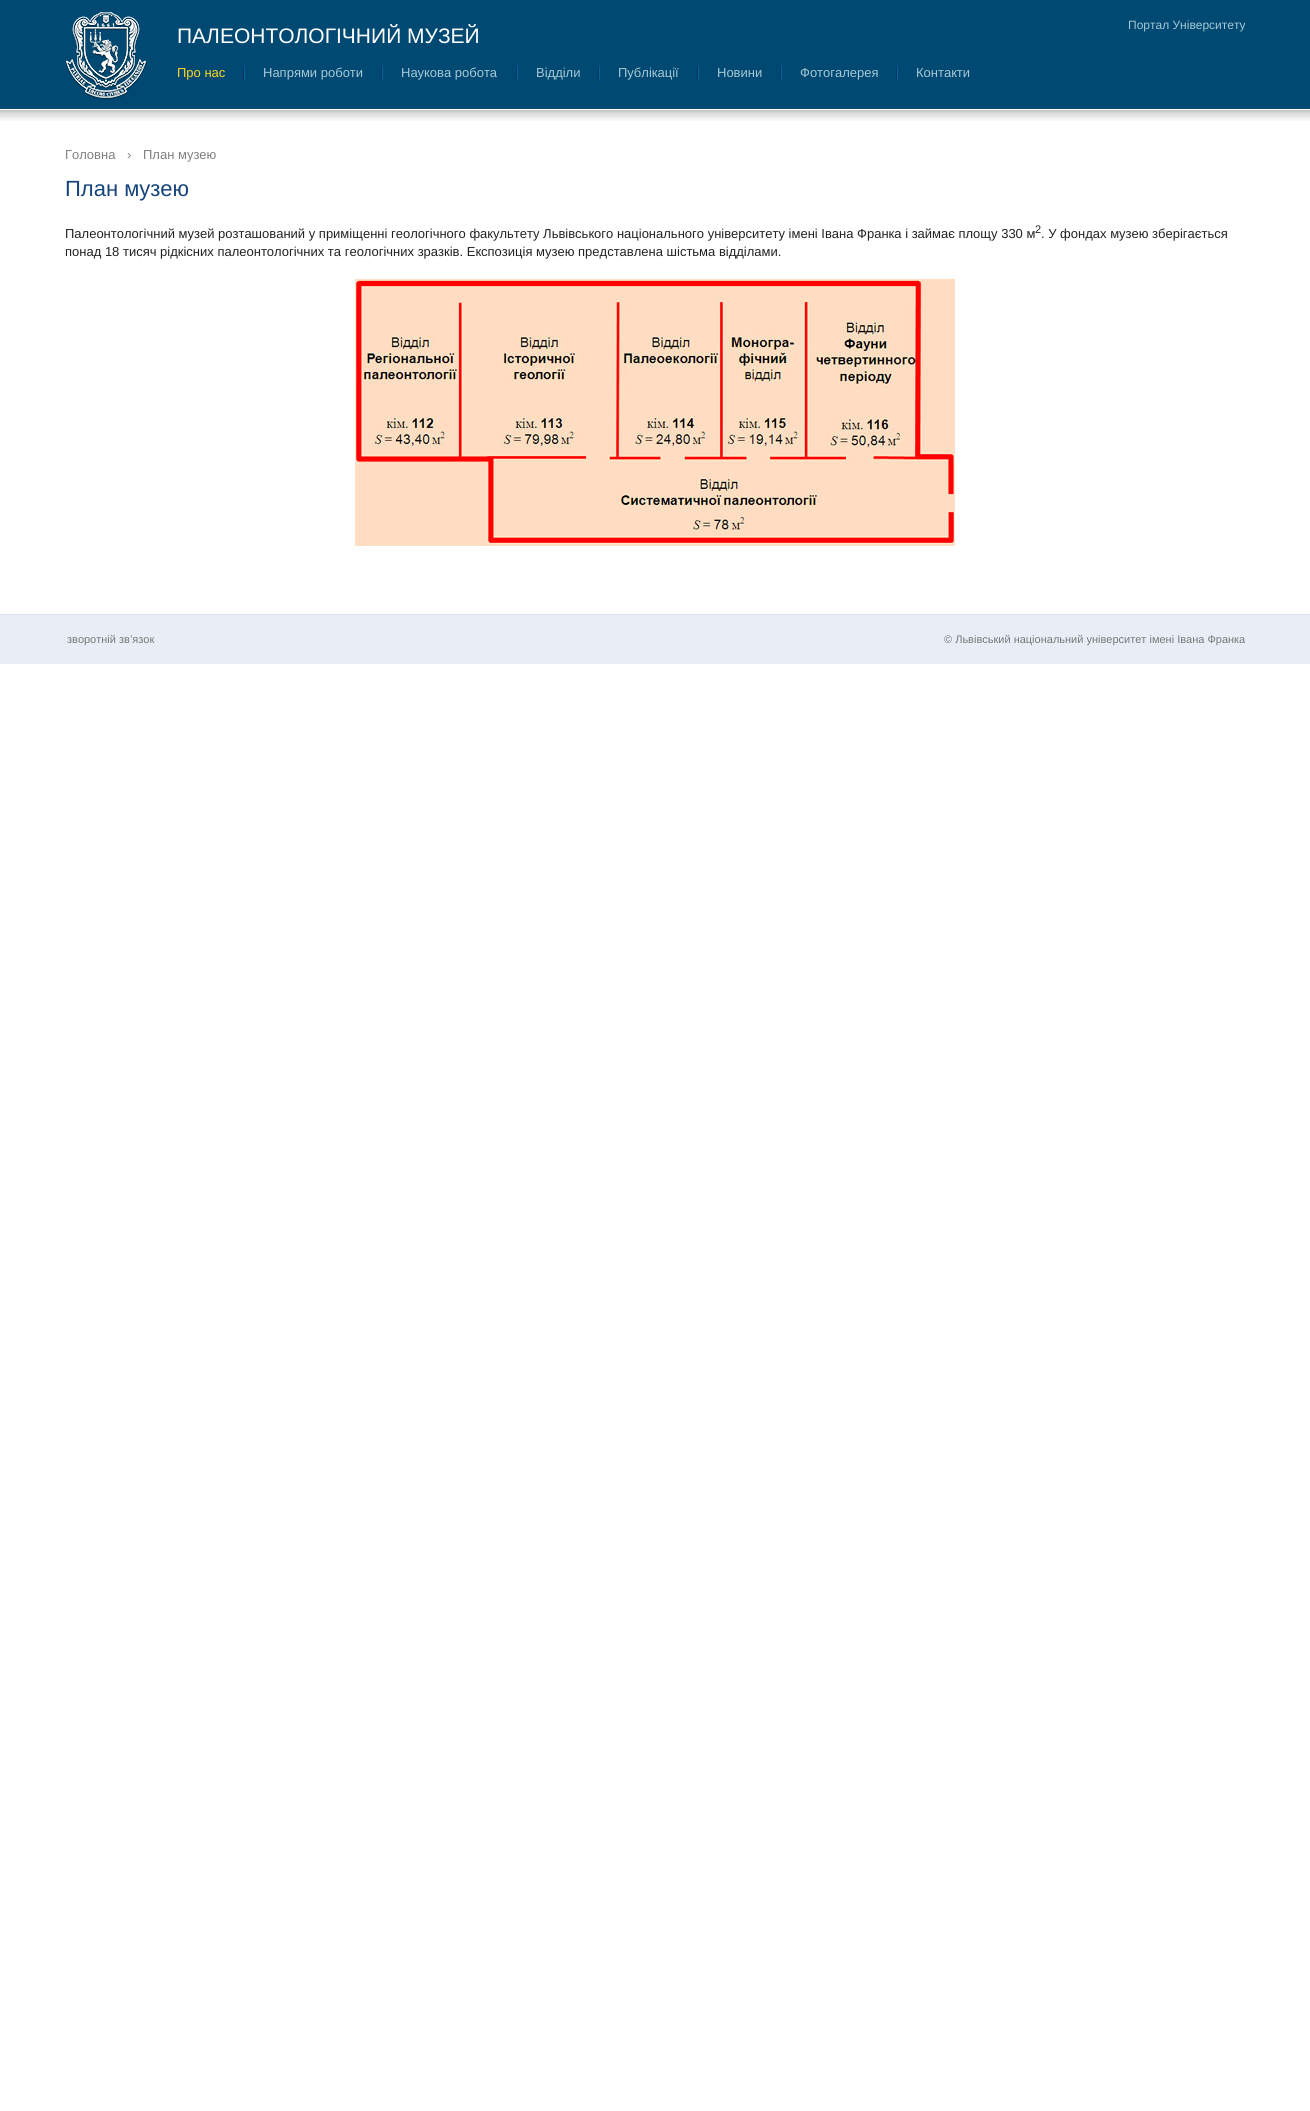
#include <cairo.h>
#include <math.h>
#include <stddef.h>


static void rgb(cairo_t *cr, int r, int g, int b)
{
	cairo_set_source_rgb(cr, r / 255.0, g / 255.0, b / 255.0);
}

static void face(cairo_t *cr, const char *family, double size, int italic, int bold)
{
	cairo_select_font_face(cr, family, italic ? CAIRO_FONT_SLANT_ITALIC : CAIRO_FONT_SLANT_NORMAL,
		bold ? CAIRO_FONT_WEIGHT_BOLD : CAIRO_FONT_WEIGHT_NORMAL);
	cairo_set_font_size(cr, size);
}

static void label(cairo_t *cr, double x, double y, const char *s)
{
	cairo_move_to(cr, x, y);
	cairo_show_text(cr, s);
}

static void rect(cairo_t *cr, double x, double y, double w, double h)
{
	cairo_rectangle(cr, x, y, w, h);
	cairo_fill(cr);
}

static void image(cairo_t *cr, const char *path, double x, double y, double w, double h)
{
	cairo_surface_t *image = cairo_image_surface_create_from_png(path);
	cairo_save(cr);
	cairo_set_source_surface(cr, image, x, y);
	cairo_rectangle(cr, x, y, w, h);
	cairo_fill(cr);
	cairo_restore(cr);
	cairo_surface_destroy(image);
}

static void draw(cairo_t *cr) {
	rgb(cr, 255, 255, 255);
	cairo_paint(cr);
	rgb(cr, 0, 73, 115);
	rect(cr, 0, 0, 1310, 109);
	image(cr, "image0.png", 65, 12, 82, 88);
	face(cr, "Liberation Sans", 21, 0, 0);
	rgb(cr, 255, 255, 255);
	label(cr, 177, 43, "ПАЛЕОНТОЛОГІЧНИЙ МУЗЕЙ");
	face(cr, "Liberation Sans", 13, 0, 0);
	rgb(cr, 255, 215, 36);
	label(cr, 177, 77, "Про нас");
	image(cr, "image1.png", 243, 65, 2, 17);
	rgb(cr, 167, 200, 212);
	label(cr, 263, 77, "Напрями роботи");
	image(cr, "image1.png", 381, 65, 2, 17);
	label(cr, 401, 77, "Наукова робота");
	image(cr, "image1.png", 516, 65, 2, 17);
	label(cr, 536, 77, "Відділи");
	image(cr, "image1.png", 598, 65, 2, 17);
	label(cr, 618, 77, "Публікації");
	image(cr, "image1.png", 697, 65, 2, 17);
	label(cr, 717, 77, "Новини");
	image(cr, "image1.png", 780, 65, 2, 17);
	label(cr, 800, 77, "Фотогалерея");
	image(cr, "image1.png", 896, 65, 2, 17);
	label(cr, 916, 77, "Контакти");
	face(cr, "Liberation Sans", 12, 0, 0);
	label(cr, 1128, 29, "Портал Університету");
	image(cr, "image2.png", 0, 110, 1310, 11);
	face(cr, "Liberation Sans", 13, 0, 0);
	rgb(cr, 128, 128, 128);
	label(cr, 65, 159, "Головна");
	label(cr, 127, 159, "›");
	label(cr, 143, 159, "План музею");
	face(cr, "Liberation Sans", 22, 0, 0);
	rgb(cr, 21, 68, 124);
	label(cr, 65, 196, "План музею");
	face(cr, "Liberation Sans", 13, 0, 0);
	rgb(cr, 34, 34, 34);
	label(cr, 65, 238, "Палеонтологічний музей розташований у приміщенні геологічного факультету Львівського національного університету імені Івана Франка і займає площу 330 м");
	face(cr, "Liberation Sans", 11, 0, 0);
	label(cr, 1035, 233, "2");
	face(cr, "Liberation Sans", 13, 0, 0);
	label(cr, 1041, 238, ". У фондах музею зберігається");
	label(cr, 65, 256, "понад 18 тисяч рідкісних палеонтологічних та геологічних зразків. Експозиція музею представлена шістьма відділами.");
	image(cr, "image3.png", 355, 279, 600, 267);
	rgb(cr, 233, 238, 246);
	rect(cr, 0, 615, 1310, 49);
	rgb(cr, 221, 225, 230);
	rect(cr, 0, 614, 1310, 1);
	face(cr, "Liberation Sans", 11, 0, 0);
	rgb(cr, 119, 119, 119);
	label(cr, 67, 643, "зворотній зв’язок");
	label(cr, 944, 643, "© Львівський національний університет імені Івана Франка");
}

int main(void) {
	cairo_surface_t *surface = cairo_image_surface_create(CAIRO_FORMAT_RGB24, 1310, 2111);
	cairo_t *cr = cairo_create(surface);
	cairo_font_options_t *options = cairo_font_options_create();
	cairo_font_options_set_hint_metrics(options, CAIRO_HINT_METRICS_OFF);
	cairo_font_options_set_hint_style(options, CAIRO_HINT_STYLE_NONE);
	cairo_set_font_options(cr, options);
	cairo_set_miter_limit(cr, 4);
	draw(cr);
	cairo_surface_write_to_png(surface, "render.png");
	cairo_font_options_destroy(options);
	cairo_destroy(cr);
	cairo_surface_destroy(surface);
	return 0;
}
